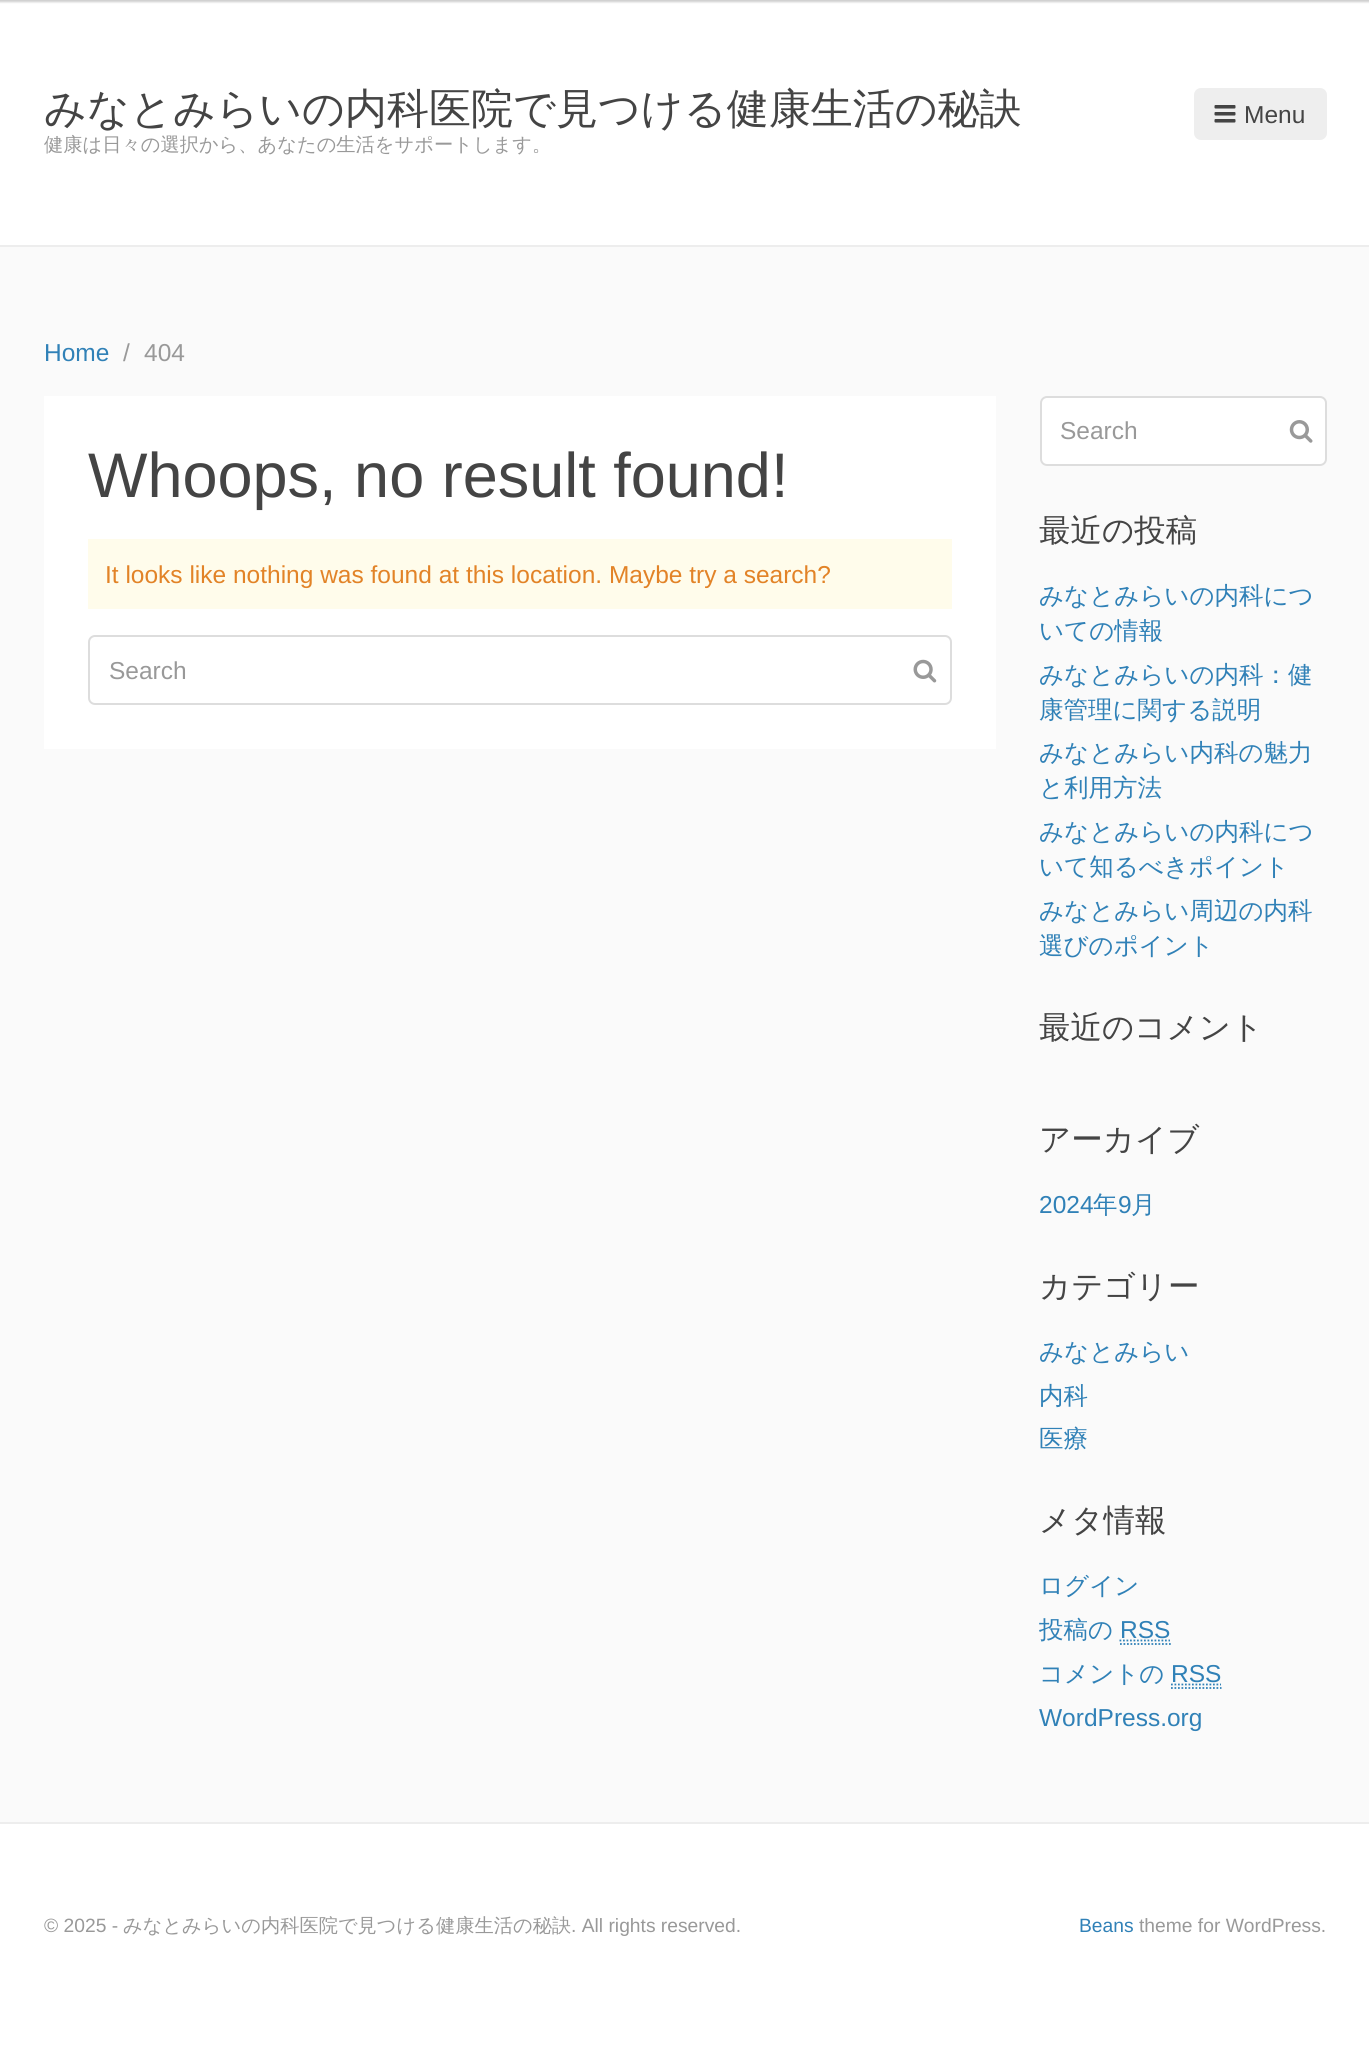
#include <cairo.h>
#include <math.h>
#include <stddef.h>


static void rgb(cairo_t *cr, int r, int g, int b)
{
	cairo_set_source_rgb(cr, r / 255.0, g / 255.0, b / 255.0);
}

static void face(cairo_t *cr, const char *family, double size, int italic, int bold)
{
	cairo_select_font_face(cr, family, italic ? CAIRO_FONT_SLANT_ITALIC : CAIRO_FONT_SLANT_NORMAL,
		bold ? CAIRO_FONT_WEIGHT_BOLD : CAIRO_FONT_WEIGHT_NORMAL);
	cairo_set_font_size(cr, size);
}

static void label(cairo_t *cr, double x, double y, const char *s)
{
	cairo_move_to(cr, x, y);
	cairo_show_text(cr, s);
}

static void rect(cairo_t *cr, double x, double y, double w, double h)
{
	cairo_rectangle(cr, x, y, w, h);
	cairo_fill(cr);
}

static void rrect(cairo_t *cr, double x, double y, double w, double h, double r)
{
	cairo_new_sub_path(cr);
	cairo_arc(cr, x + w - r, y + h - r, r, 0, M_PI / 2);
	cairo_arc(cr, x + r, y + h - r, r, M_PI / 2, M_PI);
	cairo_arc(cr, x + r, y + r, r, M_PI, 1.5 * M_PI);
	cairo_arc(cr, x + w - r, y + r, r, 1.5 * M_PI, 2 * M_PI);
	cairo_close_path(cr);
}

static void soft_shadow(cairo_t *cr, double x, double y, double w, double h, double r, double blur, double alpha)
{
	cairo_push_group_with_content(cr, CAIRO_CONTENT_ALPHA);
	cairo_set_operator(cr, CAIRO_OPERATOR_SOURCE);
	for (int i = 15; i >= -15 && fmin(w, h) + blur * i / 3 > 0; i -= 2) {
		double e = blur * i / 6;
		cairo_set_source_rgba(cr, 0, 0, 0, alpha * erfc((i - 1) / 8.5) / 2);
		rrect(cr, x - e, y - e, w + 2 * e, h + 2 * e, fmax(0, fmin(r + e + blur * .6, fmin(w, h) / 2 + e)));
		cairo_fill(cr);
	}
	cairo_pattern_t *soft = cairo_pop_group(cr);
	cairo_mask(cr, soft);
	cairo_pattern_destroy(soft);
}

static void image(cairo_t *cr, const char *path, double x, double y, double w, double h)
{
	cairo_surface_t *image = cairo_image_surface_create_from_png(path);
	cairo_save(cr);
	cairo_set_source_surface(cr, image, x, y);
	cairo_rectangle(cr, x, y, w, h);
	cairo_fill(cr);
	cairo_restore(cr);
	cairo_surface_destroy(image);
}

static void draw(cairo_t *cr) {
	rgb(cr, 255, 255, 255);
	cairo_paint(cr);
	rgb(cr, 0, 0, 0);
	soft_shadow(cr, -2, -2, 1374, 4, 0, 1, 0.2);
	rgb(cr, 237, 237, 237);
	rect(cr, 0, 245, 1369, 2);
	face(cr, "WenQuanYi Zen Hei Medium", 42, 0, 0);
	rgb(cr, 68, 68, 68);
	label(cr, 44, 123, "みなとみらいの内科医院で見つける健康生活の秘訣");
	face(cr, "WenQuanYi Zen Hei Medium", 19.25, 0, 0);
	rgb(cr, 153, 153, 153);
	label(cr, 44, 151, "健康は日々の選択から、あなたの生活をサポートします。");
	rgb(cr, 238, 238, 238);
	rrect(cr, 1194, 88, 133, 52, 7);
	cairo_fill(cr);
	image(cr, "image0.png", 1214, 105, 22, 18);
	face(cr, "Liberation Sans", 24.5, 0, 0);
	rgb(cr, 68, 68, 68);
	label(cr, 1244, 123, "Menu");
	rgb(cr, 250, 250, 250);
	rect(cr, 0, 247, 1369, 1575);
	rgb(cr, 48, 129, 183);
	label(cr, 44, 361, "Home");
	rgb(cr, 153, 153, 153);
	label(cr, 123, 361, "/");
	label(cr, 144, 361, "404");
	rgb(cr, 255, 255, 255);
	rect(cr, 44, 396, 952, 353);
	face(cr, "Liberation Sans", 63, 0, 0);
	rgb(cr, 68, 68, 68);
	label(cr, 88, 497, "Whoops, no result found!");
	rgb(cr, 255, 252, 235);
	rect(cr, 88, 539, 864, 70);
	face(cr, "Liberation Sans", 24.5, 0, 0);
	rgb(cr, 226, 131, 39);
	label(cr, 105, 583, "It looks like nothing was found at this location. Maybe try a search?");
	rrect(cr, 89, 636, 862, 68, 6);
	rgb(cr, 221, 221, 221);
	cairo_stroke(cr);
	rgb(cr, 153, 153, 153);
	label(cr, 109, 679, "Search");
	image(cr, "image1.png", 913, 659, 24, 24);
	rgb(cr, 255, 255, 255);
	rrect(cr, 1041, 397, 285, 68, 6);
	cairo_fill_preserve(cr);
	rgb(cr, 221, 221, 221);
	cairo_stroke(cr);
	rgb(cr, 153, 153, 153);
	label(cr, 1060, 439, "Search");
	image(cr, "image2.png", 1289, 420, 24, 23);
	face(cr, "WenQuanYi Zen Hei Medium", 31.5, 0, 0);
	rgb(cr, 68, 68, 68);
	label(cr, 1039, 541, "最近の投稿");
	face(cr, "WenQuanYi Zen Hei Medium", 24.5, 0, 0);
	rgb(cr, 48, 129, 183);
	label(cr, 1039, 604, "みなとみらいの内科につ");
	label(cr, 1039, 639, "いての情報");
	label(cr, 1039, 683, "みなとみらいの内科：健");
	label(cr, 1039, 718, "康管理に関する説明");
	label(cr, 1039, 761, "みなとみらい内科の魅力");
	label(cr, 1039, 796, "と利用方法");
	label(cr, 1039, 840, "みなとみらいの内科につ");
	label(cr, 1039, 875, "いて知るべきポイント");
	label(cr, 1039, 919, "みなとみらい周辺の内科");
	label(cr, 1039, 954, "選びのポイント");
	face(cr, "WenQuanYi Zen Hei Medium", 31.5, 0, 0);
	rgb(cr, 68, 68, 68);
	label(cr, 1039, 1038, "最近のコメント");
	label(cr, 1039, 1150, "アーカイブ");
	face(cr, "Liberation Sans", 24.5, 0, 0);
	rgb(cr, 48, 129, 183);
	label(cr, 1039, 1213, "2024");
	face(cr, "WenQuanYi Zen Hei Medium", 24.5, 0, 0);
	label(cr, 1093, 1213, "年");
	face(cr, "Liberation Sans", 24.5, 0, 0);
	label(cr, 1118, 1213, "9");
	face(cr, "WenQuanYi Zen Hei Medium", 24.5, 0, 0);
	label(cr, 1131, 1213, "月");
	face(cr, "WenQuanYi Zen Hei Medium", 31.5, 0, 0);
	rgb(cr, 68, 68, 68);
	label(cr, 1039, 1297, "カテゴリー");
	face(cr, "WenQuanYi Zen Hei Medium", 24.5, 0, 0);
	rgb(cr, 48, 129, 183);
	label(cr, 1039, 1360, "みなとみらい");
	label(cr, 1039, 1404, "内科");
	label(cr, 1039, 1447, "医療");
	face(cr, "WenQuanYi Zen Hei Medium", 31.5, 0, 0);
	rgb(cr, 68, 68, 68);
	label(cr, 1039, 1531, "メタ情報");
	face(cr, "WenQuanYi Zen Hei Medium", 24.5, 0, 0);
	rgb(cr, 48, 129, 183);
	label(cr, 1039, 1594, "ログイン");
	label(cr, 1039, 1638, "投稿の");
	face(cr, "Liberation Sans", 24.5, 0, 0);
	label(cr, 1120, 1638, "RSS");
	cairo_new_path(cr);
	cairo_move_to(cr, 1120, 1644);
	cairo_line_to(cr, 1171, 1644);
	cairo_move_to(cr, 1119.5, 1640.5);
	cairo_line_to(cr, 1170, 1640.5);
	cairo_set_line_width(cr, 1.8);
	cairo_set_dash(cr, (double[]){1.75, 1.75}, 2, 0);
	cairo_stroke(cr);
	face(cr, "WenQuanYi Zen Hei Medium", 24.5, 0, 0);
	label(cr, 1039, 1682, "コメントの");
	face(cr, "Liberation Sans", 24.5, 0, 0);
	label(cr, 1171, 1682, "RSS");
	cairo_new_path(cr);
	cairo_move_to(cr, 1171, 1688);
	cairo_line_to(cr, 1221.5, 1688);
	cairo_move_to(cr, 1171, 1684.5);
	cairo_line_to(cr, 1221, 1684.5);
	cairo_stroke(cr);
	label(cr, 1039, 1726, "WordPress.org");
	rgb(cr, 237, 237, 237);
	rect(cr, 0, 1822, 1369, 2);
	face(cr, "Liberation Sans", 19.25, 0, 0);
	rgb(cr, 153, 153, 153);
	label(cr, 44, 1932, "© 2025 -");
	face(cr, "WenQuanYi Zen Hei Medium", 19.25, 0, 0);
	label(cr, 123, 1932, "みなとみらいの内科医院で見つける健康生活の秘訣");
	face(cr, "Liberation Sans", 19.25, 0, 0);
	label(cr, 571, 1932, ". All rights reserved.");
	rgb(cr, 48, 129, 183);
	label(cr, 1079, 1932, "Beans");
	rgb(cr, 153, 153, 153);
	label(cr, 1139, 1932, "theme for WordPress.");
}

int main(void) {
	cairo_surface_t *surface = cairo_image_surface_create(CAIRO_FORMAT_RGB24, 1369, 2059);
	cairo_t *cr = cairo_create(surface);
	cairo_font_options_t *options = cairo_font_options_create();
	cairo_font_options_set_hint_metrics(options, CAIRO_HINT_METRICS_OFF);
	cairo_font_options_set_hint_style(options, CAIRO_HINT_STYLE_NONE);
	cairo_set_font_options(cr, options);
	cairo_set_miter_limit(cr, 4);
	draw(cr);
	cairo_surface_write_to_png(surface, "render.png");
	cairo_font_options_destroy(options);
	cairo_destroy(cr);
	cairo_surface_destroy(surface);
	return 0;
}
